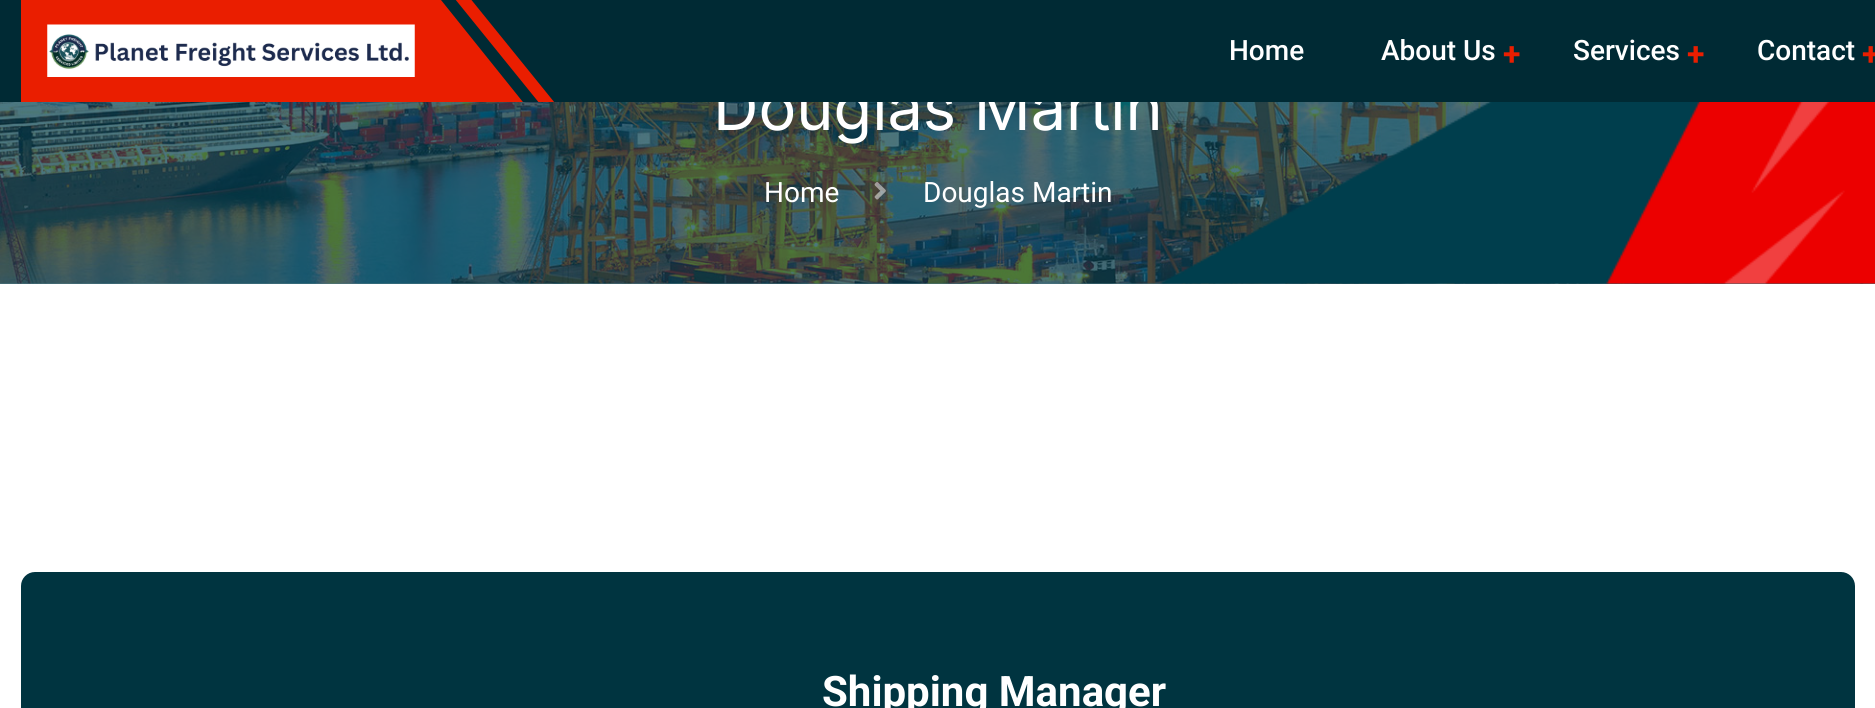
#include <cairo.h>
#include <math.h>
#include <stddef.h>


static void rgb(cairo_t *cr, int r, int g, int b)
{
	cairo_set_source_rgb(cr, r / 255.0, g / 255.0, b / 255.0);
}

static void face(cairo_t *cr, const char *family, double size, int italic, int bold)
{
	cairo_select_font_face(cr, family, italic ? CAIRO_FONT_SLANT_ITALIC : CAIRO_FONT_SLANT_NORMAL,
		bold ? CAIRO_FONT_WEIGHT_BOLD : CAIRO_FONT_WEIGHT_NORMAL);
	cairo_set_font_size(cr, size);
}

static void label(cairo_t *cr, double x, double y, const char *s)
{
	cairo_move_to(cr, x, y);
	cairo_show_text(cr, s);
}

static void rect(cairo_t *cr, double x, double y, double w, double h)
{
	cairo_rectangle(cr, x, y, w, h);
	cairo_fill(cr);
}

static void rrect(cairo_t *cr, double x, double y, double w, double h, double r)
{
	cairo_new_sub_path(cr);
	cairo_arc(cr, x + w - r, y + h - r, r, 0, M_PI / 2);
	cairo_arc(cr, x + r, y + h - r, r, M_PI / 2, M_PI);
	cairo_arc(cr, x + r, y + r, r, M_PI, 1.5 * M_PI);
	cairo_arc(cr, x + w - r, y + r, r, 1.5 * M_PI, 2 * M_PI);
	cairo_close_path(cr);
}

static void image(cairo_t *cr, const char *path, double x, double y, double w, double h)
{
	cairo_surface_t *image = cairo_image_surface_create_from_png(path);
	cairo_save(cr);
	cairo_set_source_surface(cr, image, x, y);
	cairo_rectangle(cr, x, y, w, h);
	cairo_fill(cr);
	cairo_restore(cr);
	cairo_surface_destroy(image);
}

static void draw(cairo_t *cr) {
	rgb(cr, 255, 255, 255);
	cairo_paint(cr);
	rgb(cr, 77, 120, 130);
	rect(cr, 0, 283, 1875, 1);
	image(cr, "image1.png", 0, 102, 1875, 182);
	face(cr, "Inter", 63, 0, 0);
	rgb(cr, 255, 255, 255);
	label(cr, 713, 130, "Douglas Martin");
	rgb(cr, 0, 42, 52);
	rect(cr, 0, 0, 1875, 102);
	rgb(cr, 234, 30, 0);
	rect(cr, 21, 0, 420, 102);
	cairo_save(cr);
	cairo_rectangle(cr, 21, 0, 564, 102);
	cairo_clip(cr);
	cairo_new_path(cr);
	cairo_move_to(cr, 555, 142);
	cairo_line_to(cr, 441, 142);
	cairo_line_to(cr, 441, 0);
	cairo_close_path(cr);
	cairo_fill(cr);
	cairo_restore(cr);
	image(cr, "image0.png", 47, 24, 368, 53);
	cairo_save(cr);
	cairo_rectangle(cr, 21, 0, 564, 102);
	cairo_clip(cr);
	cairo_new_path(cr);
	cairo_move_to(cr, 455, -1);
	cairo_line_to(cr, 465, -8);
	cairo_line_to(cr, 597, 155);
	cairo_line_to(cr, 587, 162);
	cairo_close_path(cr);
	cairo_fill(cr);
	cairo_restore(cr);
	face(cr, "Roboto Medium", 28, 0, 0);
	rgb(cr, 255, 255, 255);
	label(cr, 1229, 60, "Home");
	label(cr, 1381, 60, "About Us");
	face(cr, "Roboto", 32, 0, 1);
	rgb(cr, 234, 30, 0);
	label(cr, 1503, 65, "+");
	face(cr, "Roboto Medium", 28, 0, 0);
	rgb(cr, 255, 255, 255);
	label(cr, 1573, 60, "Services");
	face(cr, "Roboto", 32, 0, 1);
	rgb(cr, 234, 30, 0);
	label(cr, 1687, 65, "+");
	face(cr, "Roboto Medium", 28, 0, 0);
	rgb(cr, 255, 255, 255);
	label(cr, 1757, 60, "Contact");
	face(cr, "Roboto", 32, 0, 1);
	rgb(cr, 234, 30, 0);
	label(cr, 1862, 65, "+");
	face(cr, "Roboto", 28, 0, 0);
	rgb(cr, 255, 255, 255);
	label(cr, 764, 202, "Home");
	image(cr, "image2.png", 874, 182, 12, 18);
	label(cr, 923, 202, "Douglas Martin");
	image(cr, "image3.png", 1160, 102, 715, 182);
	rgb(cr, 0, 52, 64);
	rrect(cr, 21, 572, 1834, 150, 14);
	cairo_fill(cr);
	face(cr, "Roboto", 42, 0, 1);
	rgb(cr, 255, 255, 255);
	label(cr, 822, 706, "Shipping Manager");
}

int main(void) {
	cairo_surface_t *surface = cairo_image_surface_create(CAIRO_FORMAT_RGB24, 1875, 708);
	cairo_t *cr = cairo_create(surface);
	cairo_font_options_t *options = cairo_font_options_create();
	cairo_font_options_set_hint_metrics(options, CAIRO_HINT_METRICS_OFF);
	cairo_font_options_set_hint_style(options, CAIRO_HINT_STYLE_NONE);
	cairo_set_font_options(cr, options);
	cairo_set_miter_limit(cr, 4);
	draw(cr);
	cairo_surface_write_to_png(surface, "render.png");
	cairo_font_options_destroy(options);
	cairo_destroy(cr);
	cairo_surface_destroy(surface);
	return 0;
}
